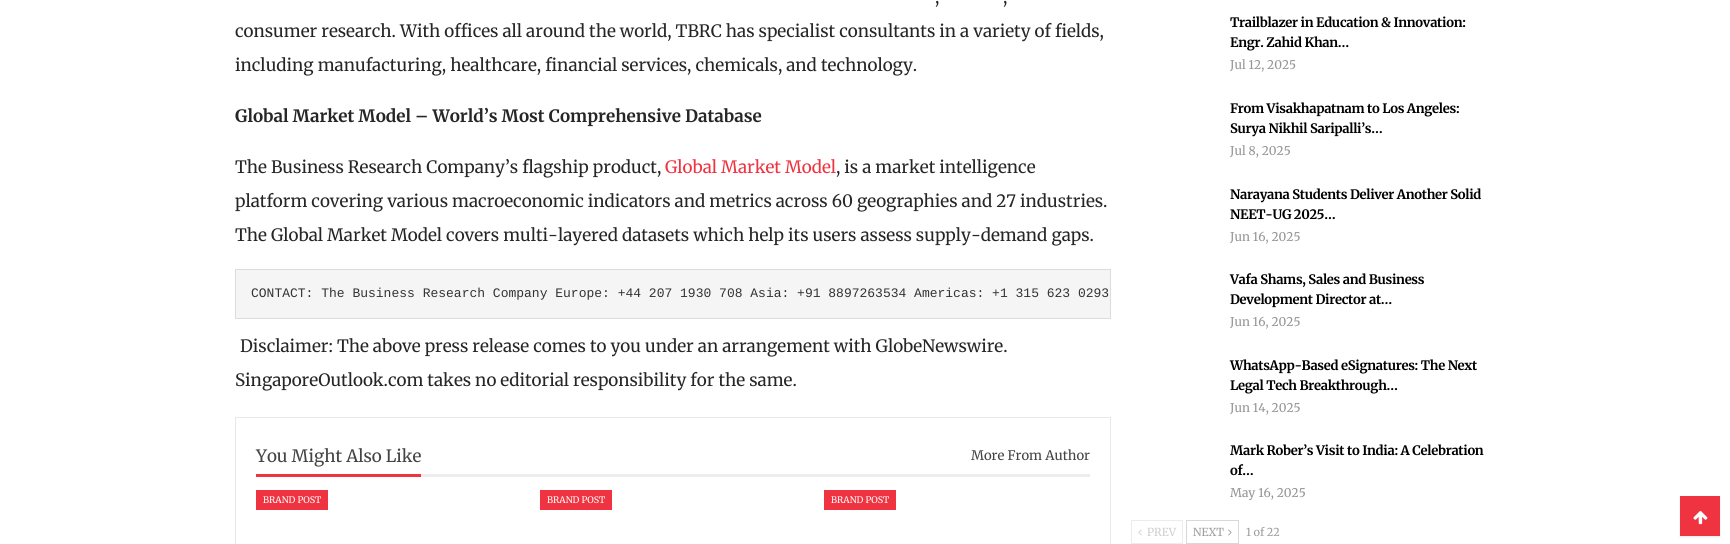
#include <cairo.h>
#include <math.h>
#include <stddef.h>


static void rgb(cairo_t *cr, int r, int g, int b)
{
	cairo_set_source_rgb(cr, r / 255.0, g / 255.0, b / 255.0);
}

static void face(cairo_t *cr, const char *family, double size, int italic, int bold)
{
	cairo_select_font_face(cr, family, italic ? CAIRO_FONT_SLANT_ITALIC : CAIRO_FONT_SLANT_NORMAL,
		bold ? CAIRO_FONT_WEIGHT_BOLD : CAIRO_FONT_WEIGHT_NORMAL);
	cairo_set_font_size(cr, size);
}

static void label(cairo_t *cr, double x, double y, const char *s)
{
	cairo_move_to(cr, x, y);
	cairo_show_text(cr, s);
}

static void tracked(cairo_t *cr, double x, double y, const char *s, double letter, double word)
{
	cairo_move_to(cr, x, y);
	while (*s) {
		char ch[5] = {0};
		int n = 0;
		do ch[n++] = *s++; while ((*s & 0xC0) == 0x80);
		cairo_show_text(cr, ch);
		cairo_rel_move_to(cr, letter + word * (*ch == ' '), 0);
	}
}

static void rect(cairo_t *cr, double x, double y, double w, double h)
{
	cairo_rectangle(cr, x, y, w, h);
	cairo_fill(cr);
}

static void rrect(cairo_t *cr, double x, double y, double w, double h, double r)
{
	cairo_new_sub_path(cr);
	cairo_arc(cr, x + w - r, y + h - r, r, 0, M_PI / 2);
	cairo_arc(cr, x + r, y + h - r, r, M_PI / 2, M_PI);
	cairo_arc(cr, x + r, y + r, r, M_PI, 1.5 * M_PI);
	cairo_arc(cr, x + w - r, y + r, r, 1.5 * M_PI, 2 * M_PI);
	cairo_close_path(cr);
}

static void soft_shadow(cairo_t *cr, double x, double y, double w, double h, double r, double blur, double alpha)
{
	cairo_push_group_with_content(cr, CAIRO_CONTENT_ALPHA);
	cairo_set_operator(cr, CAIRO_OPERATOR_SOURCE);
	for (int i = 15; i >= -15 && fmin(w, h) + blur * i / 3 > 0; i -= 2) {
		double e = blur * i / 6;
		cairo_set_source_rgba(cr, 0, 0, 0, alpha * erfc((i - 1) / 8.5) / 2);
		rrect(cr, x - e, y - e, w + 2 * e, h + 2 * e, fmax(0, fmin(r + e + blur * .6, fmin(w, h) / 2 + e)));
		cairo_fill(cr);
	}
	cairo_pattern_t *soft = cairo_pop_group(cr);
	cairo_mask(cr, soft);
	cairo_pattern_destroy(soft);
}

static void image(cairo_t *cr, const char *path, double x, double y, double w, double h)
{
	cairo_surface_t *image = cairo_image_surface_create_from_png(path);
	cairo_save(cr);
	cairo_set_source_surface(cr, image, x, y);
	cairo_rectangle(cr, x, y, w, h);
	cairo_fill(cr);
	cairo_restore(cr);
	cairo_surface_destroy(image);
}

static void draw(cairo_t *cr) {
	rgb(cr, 255, 255, 255);
	cairo_paint(cr);
	face(cr, "Merriweather", 17, 0, 0);
	rgb(cr, 38, 38, 38);
	label(cr, 935, 3, ",");
	label(cr, 1003, 3, ",");
	label(cr, 235, 37, "consumer research. With offices all around the world, TBRC has specialist consultants in a variety of fields,");
	label(cr, 235, 71, "including manufacturing, healthcare, financial services, chemicals, and technology.");
	face(cr, "Merriweather", 17, 0, 1);
	label(cr, 235, 122, "Global Market Model – World’s Most Comprehensive Database");
	face(cr, "Merriweather", 17, 0, 0);
	label(cr, 235, 173, "The Business Research Company’s flagship product,");
	rgb(cr, 239, 51, 64);
	label(cr, 665, 173, "Global Market Model");
	rgb(cr, 38, 38, 38);
	label(cr, 836, 173, ", is a market intelligence");
	label(cr, 235, 207, "platform covering various macroeconomic indicators and metrics across 60 geographies and 27 industries.");
	label(cr, 235, 241, "The Global Market Model covers multi-layered datasets which help its users assess supply-demand gaps.");
	rgb(cr, 245, 245, 245);
	cairo_rectangle(cr, 235.5, 269.5, 875, 49);
	cairo_fill_preserve(cr);
	rgb(cr, 220, 220, 220);
	cairo_set_line_width(cr, 1);
	cairo_stroke(cr);
	face(cr, "Liberation Mono", 13, 0, 0);
	rgb(cr, 51, 51, 51);
	label(cr, 251, 297, "CONTACT: The Business Research Company Europe: +44 207 1930 708 Asia: +91 8897263534 Americas: +1 315 623 0293");
	face(cr, "Merriweather", 17, 0, 0);
	rgb(cr, 38, 38, 38);
	label(cr, 240, 352, "Disclaimer: The above press release comes to you under an arrangement with GlobeNewswire.");
	label(cr, 235, 386, "SingaporeOutlook.com takes no editorial responsibility for the same.");
	cairo_rectangle(cr, 235.5, 417.5, 875, 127);
	rgb(cr, 232, 232, 232);
	cairo_stroke(cr);
	rgb(cr, 68, 68, 68);
	label(cr, 256, 462, "You Might Also Like");
	rgb(cr, 239, 51, 64);
	rect(cr, 256, 474, 165, 3);
	face(cr, "Merriweather", 13.1, 0, 0);
	rgb(cr, 68, 68, 68);
	label(cr, 971, 460, "More From Author");
	rgb(cr, 237, 237, 237);
	rect(cr, 421, 474, 669, 3);
	rgb(cr, 239, 51, 64);
	rect(cr, 256, 490, 72, 20);
	face(cr, "Merriweather", 9, 0, 0);
	rgb(cr, 255, 255, 255);
	label(cr, 263, 503, "BRAND POST");
	rgb(cr, 239, 51, 64);
	rect(cr, 540, 490, 72, 20);
	rgb(cr, 255, 255, 255);
	label(cr, 547, 503, "BRAND POST");
	rgb(cr, 239, 51, 64);
	rect(cr, 824, 490, 72, 20);
	rgb(cr, 255, 255, 255);
	label(cr, 831, 503, "BRAND POST");
	face(cr, "Merriweather", 13, 0, 1);
	rgb(cr, 0, 0, 0);
	tracked(cr, 1230, 27, "Trailblazer in Education & Innovation:", -0.3, 0);
	tracked(cr, 1230, 47, "Engr. Zahid Khan…", -0.3, 0);
	face(cr, "Merriweather", 12, 0, 0);
	rgb(cr, 149, 149, 149);
	label(cr, 1230, 69, "Jul 12, 2025");
	face(cr, "Merriweather", 13, 0, 1);
	rgb(cr, 0, 0, 0);
	tracked(cr, 1230, 113, "From Visakhapatnam to Los Angeles:", -0.3, 0);
	tracked(cr, 1230, 133, "Surya Nikhil Saripalli’s…", -0.3, 0);
	face(cr, "Merriweather", 12, 0, 0);
	rgb(cr, 149, 149, 149);
	label(cr, 1230, 155, "Jul 8, 2025");
	face(cr, "Merriweather", 13, 0, 1);
	rgb(cr, 0, 0, 0);
	tracked(cr, 1230, 199, "Narayana Students Deliver Another Solid", -0.3, 0);
	tracked(cr, 1230, 219, "NEET-UG 2025…", -0.3, 0);
	face(cr, "Merriweather", 12, 0, 0);
	rgb(cr, 149, 149, 149);
	label(cr, 1230, 241, "Jun 16, 2025");
	face(cr, "Merriweather", 13, 0, 1);
	rgb(cr, 0, 0, 0);
	tracked(cr, 1230, 284, "Vafa Shams, Sales and Business", -0.3, 0);
	tracked(cr, 1230, 304, "Development Director at…", -0.3, 0);
	face(cr, "Merriweather", 12, 0, 0);
	rgb(cr, 149, 149, 149);
	label(cr, 1230, 326, "Jun 16, 2025");
	face(cr, "Merriweather", 13, 0, 1);
	rgb(cr, 0, 0, 0);
	tracked(cr, 1230, 370, "WhatsApp-Based eSignatures: The Next", -0.3, 0);
	tracked(cr, 1230, 390, "Legal Tech Breakthrough…", -0.3, 0);
	face(cr, "Merriweather", 12, 0, 0);
	rgb(cr, 149, 149, 149);
	label(cr, 1230, 412, "Jun 14, 2025");
	face(cr, "Merriweather", 13, 0, 1);
	rgb(cr, 0, 0, 0);
	tracked(cr, 1230, 455, "Mark Rober’s Visit to India: A Celebration", -0.3, 0);
	tracked(cr, 1230, 475, "of…", -0.3, 0);
	face(cr, "Merriweather", 12, 0, 0);
	rgb(cr, 149, 149, 149);
	label(cr, 1230, 497, "May 16, 2025");
	cairo_rectangle(cr, 1131.5, 520.5, 51, 23);
	rgb(cr, 236, 236, 236);
	cairo_stroke(cr);
	image(cr, "image0.png", 1138, 529, 4, 7);
	face(cr, "Merriweather", 11, 0, 0);
	rgb(cr, 207, 207, 207);
	label(cr, 1147, 536, "PREV");
	cairo_rectangle(cr, 1186.5, 520.5, 52, 23);
	rgb(cr, 216, 216, 216);
	cairo_stroke(cr);
	rgb(cr, 158, 158, 158);
	label(cr, 1193, 536, "NEXT");
	image(cr, "image1.png", 1228, 529, 4, 7);
	label(cr, 1246, 536, "1 of 22");
	rgb(cr, 0, 0, 0);
	soft_shadow(cr, 1680, 497, 40, 40, 0, 1, 0.09);
	rgb(cr, 239, 51, 64);
	rect(cr, 1680, 496, 40, 40);
	image(cr, "image2.png", 1693, 511, 15, 14);
}

int main(void) {
	cairo_surface_t *surface = cairo_image_surface_create(CAIRO_FORMAT_RGB24, 1730, 544);
	cairo_t *cr = cairo_create(surface);
	cairo_font_options_t *options = cairo_font_options_create();
	cairo_font_options_set_hint_metrics(options, CAIRO_HINT_METRICS_OFF);
	cairo_font_options_set_hint_style(options, CAIRO_HINT_STYLE_NONE);
	cairo_set_font_options(cr, options);
	cairo_set_miter_limit(cr, 4);
	draw(cr);
	cairo_surface_write_to_png(surface, "render.png");
	cairo_font_options_destroy(options);
	cairo_destroy(cr);
	cairo_surface_destroy(surface);
	return 0;
}
